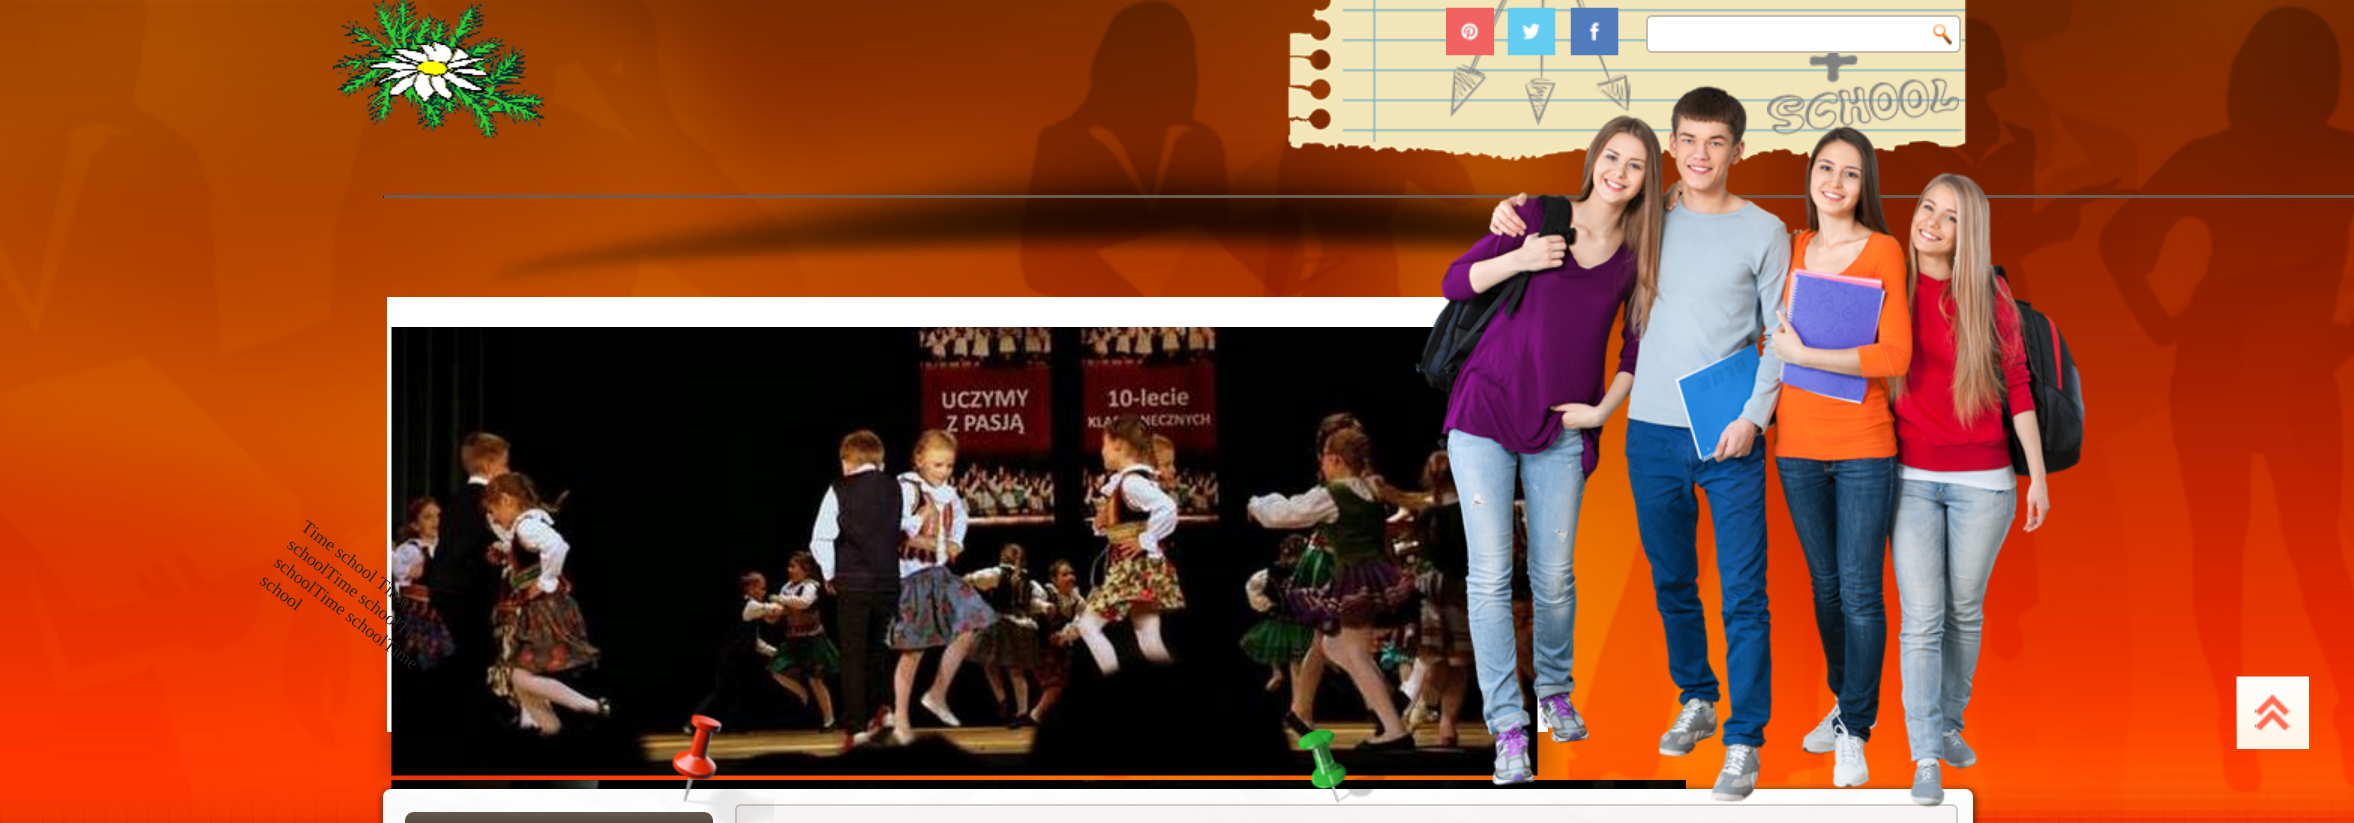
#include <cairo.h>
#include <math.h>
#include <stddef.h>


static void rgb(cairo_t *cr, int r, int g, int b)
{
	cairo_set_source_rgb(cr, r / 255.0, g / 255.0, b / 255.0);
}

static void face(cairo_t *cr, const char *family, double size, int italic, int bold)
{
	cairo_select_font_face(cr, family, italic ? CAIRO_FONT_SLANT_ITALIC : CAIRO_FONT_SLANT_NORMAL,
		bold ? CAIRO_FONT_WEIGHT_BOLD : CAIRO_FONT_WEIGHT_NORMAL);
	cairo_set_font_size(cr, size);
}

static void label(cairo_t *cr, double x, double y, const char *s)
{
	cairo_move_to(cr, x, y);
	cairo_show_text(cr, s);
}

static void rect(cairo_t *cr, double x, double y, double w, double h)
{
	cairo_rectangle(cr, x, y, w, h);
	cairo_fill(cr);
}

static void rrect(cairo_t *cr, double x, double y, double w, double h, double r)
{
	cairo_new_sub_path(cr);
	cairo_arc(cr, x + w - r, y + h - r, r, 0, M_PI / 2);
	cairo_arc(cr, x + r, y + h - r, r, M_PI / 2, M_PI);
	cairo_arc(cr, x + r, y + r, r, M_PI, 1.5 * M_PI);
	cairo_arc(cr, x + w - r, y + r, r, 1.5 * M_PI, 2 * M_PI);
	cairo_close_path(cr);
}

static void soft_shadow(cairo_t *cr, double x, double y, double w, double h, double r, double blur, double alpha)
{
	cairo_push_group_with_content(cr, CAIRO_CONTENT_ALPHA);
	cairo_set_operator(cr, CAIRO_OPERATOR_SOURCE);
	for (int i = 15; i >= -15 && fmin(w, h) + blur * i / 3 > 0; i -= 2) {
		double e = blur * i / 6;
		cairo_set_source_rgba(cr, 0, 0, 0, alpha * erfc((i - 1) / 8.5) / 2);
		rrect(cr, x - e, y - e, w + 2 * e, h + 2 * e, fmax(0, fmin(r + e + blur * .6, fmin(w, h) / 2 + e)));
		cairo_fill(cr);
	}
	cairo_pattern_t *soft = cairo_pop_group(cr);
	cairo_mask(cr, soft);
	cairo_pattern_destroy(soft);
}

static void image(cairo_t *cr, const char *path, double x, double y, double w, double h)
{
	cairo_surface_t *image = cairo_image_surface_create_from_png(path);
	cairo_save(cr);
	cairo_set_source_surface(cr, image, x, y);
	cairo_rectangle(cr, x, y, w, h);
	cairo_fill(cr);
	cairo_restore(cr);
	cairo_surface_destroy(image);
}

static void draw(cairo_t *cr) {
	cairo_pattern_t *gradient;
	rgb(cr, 255, 255, 255);
	cairo_paint(cr);
	image(cr, "image0.png", 0, 0, 2354, 823);
	image(cr, "image1.png", 333, 0, 213, 139);
	image(cr, "image10.png", 486, 140, 1094, 144);
	image(cr, "image7.png", 1287, 0, 680, 161);
	image(cr, "image8.png", 1449, 0, 182, 126);
	image(cr, "image2.png", 1446, 7, 48, 49);
	image(cr, "image3.png", 1507, 7, 49, 49);
	image(cr, "image4.png", 1570, 7, 49, 49);
	rgb(cr, 255, 255, 255);
	rrect(cr, 1647, 16, 313, 36, 5);
	cairo_fill_preserve(cr);
	rgb(cr, 196, 187, 176);
	cairo_stroke(cr);
	image(cr, "image5.png", 1932, 23, 21, 23);
	gradient = cairo_pattern_create_linear(1560, 195, 1560, 198);
	cairo_pattern_add_color_stop_rgba(gradient, 0, 0.275, 0.243, 0.208, 1);
	cairo_pattern_add_color_stop_rgba(gradient, 1, 0, 0, 0, 1);
	cairo_set_source(cr, gradient);
	cairo_pattern_destroy(gradient);
	cairo_new_path(cr);
	cairo_move_to(cr, 384.5, 195);
	cairo_line_to(cr, 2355, 195);
	cairo_line_to(cr, 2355, 198);
	cairo_line_to(cr, 384.5, 198);
	cairo_curve_to(cr, 383.5, 198, 383, 197.5, 383, 196.5);
	cairo_curve_to(cr, 383, 195.5, 383.5, 195, 384.5, 195);
	cairo_close_path(cr);
	cairo_fill(cr);
	rgb(cr, 105, 93, 79);
	rect(cr, 384, 195, 1970, 3);
	image(cr, "image9.png", 1767, 53, 192, 83);
	image(cr, "image13.png", 372, 675, 1190, 115);
	rgb(cr, 255, 255, 255);
	rect(cr, 387, 297, 1161, 435);
	image(cr, "image11.png", 391, 327, 1147, 449);
	image(cr, "image12.png", 391, 780, 1295, 9);
	rgb(cr, 0, 0, 0);
	soft_shadow(cr, 381, 788, 1596, 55, 11, 3, 0.4);
	rgb(cr, 255, 255, 255);
	rrect(cr, 383, 789, 1590, 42, 8);
	cairo_fill(cr);
	image(cr, "image16.png", 382, 789, 1589, 34);
	cairo_set_source_rgba(cr, 0.941, 0.929, 0.922, 0.5);
	rrect(cr, 735, 804, 1223, 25, 6);
	cairo_fill(cr);
	rrect(cr, 736, 805, 1221, 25, 5);
	cairo_set_source_rgba(cr, 0.69, 0.643, 0.588, 0.5);
	cairo_stroke(cr);
	image(cr, "image6.png", 1414, 85, 673, 723);
	face(cr, "Liberation Serif", 18, 0, 0);
	rgb(cr, 41, 36, 31);
	cairo_save(cr);
	cairo_translate(cr, 300, 529);
	cairo_rotate(cr, 37 * M_PI / 180);
	label(cr, 0, 0, "Time school Time");
	cairo_restore(cr);
	cairo_save(cr);
	cairo_translate(cr, 286, 547);
	cairo_rotate(cr, 37 * M_PI / 180);
	label(cr, 0, 0, "schoolTime schoolTime");
	cairo_restore(cr);
	cairo_save(cr);
	cairo_translate(cr, 273, 565);
	cairo_rotate(cr, 37 * M_PI / 180);
	label(cr, 0, 0, "schoolTime schoolTime");
	cairo_restore(cr);
	cairo_save(cr);
	cairo_translate(cr, 259, 583);
	cairo_rotate(cr, 37 * M_PI / 180);
	label(cr, 0, 0, "school");
	cairo_restore(cr);
	gradient = cairo_pattern_create_linear(559, 812, 559, 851);
	cairo_pattern_add_color_stop_rgba(gradient, 0, 0.4, 0.353, 0.302, 1);
	cairo_pattern_add_color_stop_rgba(gradient, 0.5, 0.275, 0.243, 0.208, 1);
	cairo_pattern_add_color_stop_rgba(gradient, 0.5, 0.09, 0.082, 0.071, 1);
	cairo_pattern_add_color_stop_rgba(gradient, 1, 0.216, 0.192, 0.165, 1);
	cairo_set_source(cr, gradient);
	cairo_pattern_destroy(gradient);
	cairo_new_path(cr);
	cairo_move_to(cr, 414, 812);
	cairo_line_to(cr, 704, 812);
	cairo_curve_to(cr, 709, 812, 713, 816, 713, 821);
	cairo_line_to(cr, 713, 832);
	cairo_line_to(cr, 405, 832);
	cairo_line_to(cr, 405, 821);
	cairo_curve_to(cr, 405, 816, 409, 812, 414, 812);
	cairo_close_path(cr);
	cairo_fill(cr);
	image(cr, "image14.png", 671, 713, 103, 110);
	image(cr, "image15.png", 1297, 728, 90, 75);
	rgb(cr, 255, 255, 255);
	rect(cr, 2237, 677, 72, 72);
	image(cr, "image17.png", 2236, 676, 73, 73);
}

int main(void) {
	cairo_surface_t *surface = cairo_image_surface_create(CAIRO_FORMAT_RGB24, 2354, 823);
	cairo_t *cr = cairo_create(surface);
	cairo_font_options_t *options = cairo_font_options_create();
	cairo_font_options_set_hint_metrics(options, CAIRO_HINT_METRICS_OFF);
	cairo_font_options_set_hint_style(options, CAIRO_HINT_STYLE_NONE);
	cairo_set_font_options(cr, options);
	cairo_set_miter_limit(cr, 4);
	draw(cr);
	cairo_surface_write_to_png(surface, "render.png");
	cairo_font_options_destroy(options);
	cairo_destroy(cr);
	cairo_surface_destroy(surface);
	return 0;
}
